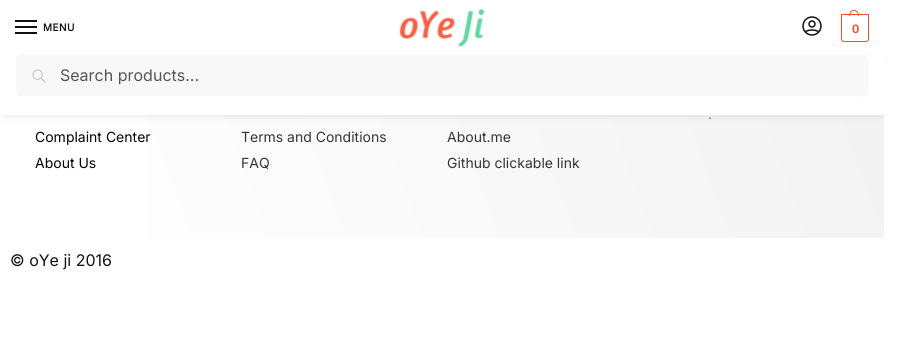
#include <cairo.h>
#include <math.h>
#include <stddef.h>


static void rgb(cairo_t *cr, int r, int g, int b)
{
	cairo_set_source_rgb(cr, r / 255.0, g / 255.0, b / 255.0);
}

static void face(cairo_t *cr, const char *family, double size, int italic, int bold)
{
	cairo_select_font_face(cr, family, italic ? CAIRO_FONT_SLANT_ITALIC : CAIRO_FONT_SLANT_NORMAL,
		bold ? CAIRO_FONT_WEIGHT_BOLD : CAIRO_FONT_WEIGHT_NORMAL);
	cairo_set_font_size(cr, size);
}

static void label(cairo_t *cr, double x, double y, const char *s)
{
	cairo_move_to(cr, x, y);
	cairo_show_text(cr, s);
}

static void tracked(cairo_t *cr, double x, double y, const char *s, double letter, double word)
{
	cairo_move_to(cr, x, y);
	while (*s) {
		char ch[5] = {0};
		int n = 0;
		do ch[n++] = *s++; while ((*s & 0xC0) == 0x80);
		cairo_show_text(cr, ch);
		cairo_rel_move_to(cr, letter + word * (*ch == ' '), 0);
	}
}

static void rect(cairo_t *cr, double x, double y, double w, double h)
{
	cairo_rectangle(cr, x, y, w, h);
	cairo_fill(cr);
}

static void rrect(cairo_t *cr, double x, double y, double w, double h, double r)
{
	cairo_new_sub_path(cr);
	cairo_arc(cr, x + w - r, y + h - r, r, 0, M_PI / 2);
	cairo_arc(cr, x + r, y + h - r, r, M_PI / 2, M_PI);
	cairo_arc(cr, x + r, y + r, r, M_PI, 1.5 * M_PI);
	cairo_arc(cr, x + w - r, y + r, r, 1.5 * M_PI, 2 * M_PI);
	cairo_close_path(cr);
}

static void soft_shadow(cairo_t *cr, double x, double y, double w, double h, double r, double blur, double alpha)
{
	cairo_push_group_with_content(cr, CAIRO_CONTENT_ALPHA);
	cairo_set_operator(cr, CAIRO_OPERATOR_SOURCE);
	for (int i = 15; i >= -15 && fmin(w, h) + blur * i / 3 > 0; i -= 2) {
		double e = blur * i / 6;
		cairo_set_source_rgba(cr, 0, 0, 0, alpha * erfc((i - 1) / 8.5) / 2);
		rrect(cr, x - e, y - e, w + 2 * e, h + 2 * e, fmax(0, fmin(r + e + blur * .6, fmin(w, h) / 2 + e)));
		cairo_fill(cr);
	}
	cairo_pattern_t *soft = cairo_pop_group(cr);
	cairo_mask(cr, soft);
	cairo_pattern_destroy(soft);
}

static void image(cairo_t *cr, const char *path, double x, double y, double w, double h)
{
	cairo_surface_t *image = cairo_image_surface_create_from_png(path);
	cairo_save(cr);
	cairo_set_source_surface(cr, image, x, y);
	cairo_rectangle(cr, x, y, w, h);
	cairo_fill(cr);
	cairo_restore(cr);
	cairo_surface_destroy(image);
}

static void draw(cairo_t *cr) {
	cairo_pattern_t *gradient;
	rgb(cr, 255, 255, 255);
	cairo_paint(cr);
	rgb(cr, 17, 17, 17);
	rect(cr, 15, 20, 22, 2);
	rect(cr, 15, 26, 22, 2);
	face(cr, "Inter", 10, 0, 1);
	rgb(cr, 18, 18, 18);
	tracked(cr, 43, 31, "MENU", 0.5, 0);
	rgb(cr, 17, 17, 17);
	rect(cr, 15, 32, 22, 2);
	image(cr, "image0.png", 399, 8, 86, 40);
	image(cr, "image1.png", 802, 16, 20, 20);
	cairo_new_path(cr);
	cairo_move_to(cr, 841.5, 14.5);
	cairo_line_to(cr, 868.5, 14.5);
	cairo_line_to(cr, 868.5, 39);
	cairo_curve_to(cr, 868.5, 40.5, 867.5, 41.5, 866, 41.5);
	cairo_line_to(cr, 844, 41.5);
	cairo_curve_to(cr, 842.5, 41.5, 841.5, 40.5, 841.5, 39);
	cairo_close_path(cr);
	rgb(cr, 240, 80, 37);
	cairo_set_line_width(cr, 1);
	cairo_stroke(cr);
	cairo_set_fill_rule(cr, CAIRO_FILL_RULE_EVEN_ODD);
	cairo_new_path(cr);
	cairo_move_to(cr, 854, 10);
	cairo_curve_to(cr, 857.5, 10, 859, 13, 859, 16);
	cairo_line_to(cr, 849, 16);
	cairo_curve_to(cr, 849, 13, 850.5, 10, 854, 10);
	cairo_close_path(cr);
	cairo_move_to(cr, 854, 11);
	cairo_curve_to(cr, 857, 11, 858, 13.5, 858, 16);
	cairo_line_to(cr, 850, 16);
	cairo_curve_to(cr, 850, 13.5, 851, 11, 854, 11);
	cairo_close_path(cr);
	cairo_fill(cr);
	face(cr, "IBM Plex Sans SemiBold", 12, 0, 0);
	tracked(cr, 852, 33, "0", -1, 0);
	gradient = cairo_pattern_create_linear(884, -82, 0.4, 239);
	cairo_pattern_add_color_stop_rgba(gradient, 0, 0.949, 0.949, 0.949, 1);
	cairo_pattern_add_color_stop_rgba(gradient, 1, 1, 1, 1, 1);
	cairo_set_source(cr, gradient);
	cairo_pattern_destroy(gradient);
	rect(cr, 148, 115, 736, 123);
	rgb(cr, 0, 0, 0);
	soft_shadow(cr, 5, 63, 874, 50, 0, 5, 0.18);
	rgb(cr, 255, 255, 255);
	rect(cr, 0, 55, 884, 60);
	rgb(cr, 0, 0, 0);
	soft_shadow(cr, 16, 56, 852, 40, 5, 1, 0.05);
	rgb(cr, 248, 248, 248);
	rrect(cr, 16, 55, 852, 40, 5);
	cairo_fill(cr);
	image(cr, "image2.png", 32, 69, 14, 14);
	face(cr, "Inter", 16, 0, 0);
	rgb(cr, 85, 85, 85);
	label(cr, 60, 81, "Search products...");
	rgb(cr, 255, 255, 255);
	rect(cr, 884, 62, 3, 52);
	face(cr, "Inter", 14, 0, 0);
	rgb(cr, 240, 80, 37);
	label(cr, 708, 119, ".");
	rgb(cr, 3, 3, 3);
	label(cr, 35, 142, "Complaint Center");
	label(cr, 35, 168, "About Us");
	rgb(cr, 53, 53, 53);
	label(cr, 241, 142, "Terms and Conditions");
	label(cr, 241, 168, "FAQ");
	label(cr, 447, 142, "About.me");
	label(cr, 447, 168, "Github clickable link");
	face(cr, "Inter", 16, 0, 0);
	rgb(cr, 18, 18, 18);
	label(cr, 10, 266, "© oYe ji 2016");
}

int main(void) {
	cairo_surface_t *surface = cairo_image_surface_create(CAIRO_FORMAT_RGB24, 899, 355);
	cairo_t *cr = cairo_create(surface);
	cairo_font_options_t *options = cairo_font_options_create();
	cairo_font_options_set_hint_metrics(options, CAIRO_HINT_METRICS_OFF);
	cairo_font_options_set_hint_style(options, CAIRO_HINT_STYLE_NONE);
	cairo_set_font_options(cr, options);
	cairo_set_miter_limit(cr, 4);
	draw(cr);
	cairo_surface_write_to_png(surface, "render.png");
	cairo_font_options_destroy(options);
	cairo_destroy(cr);
	cairo_surface_destroy(surface);
	return 0;
}
